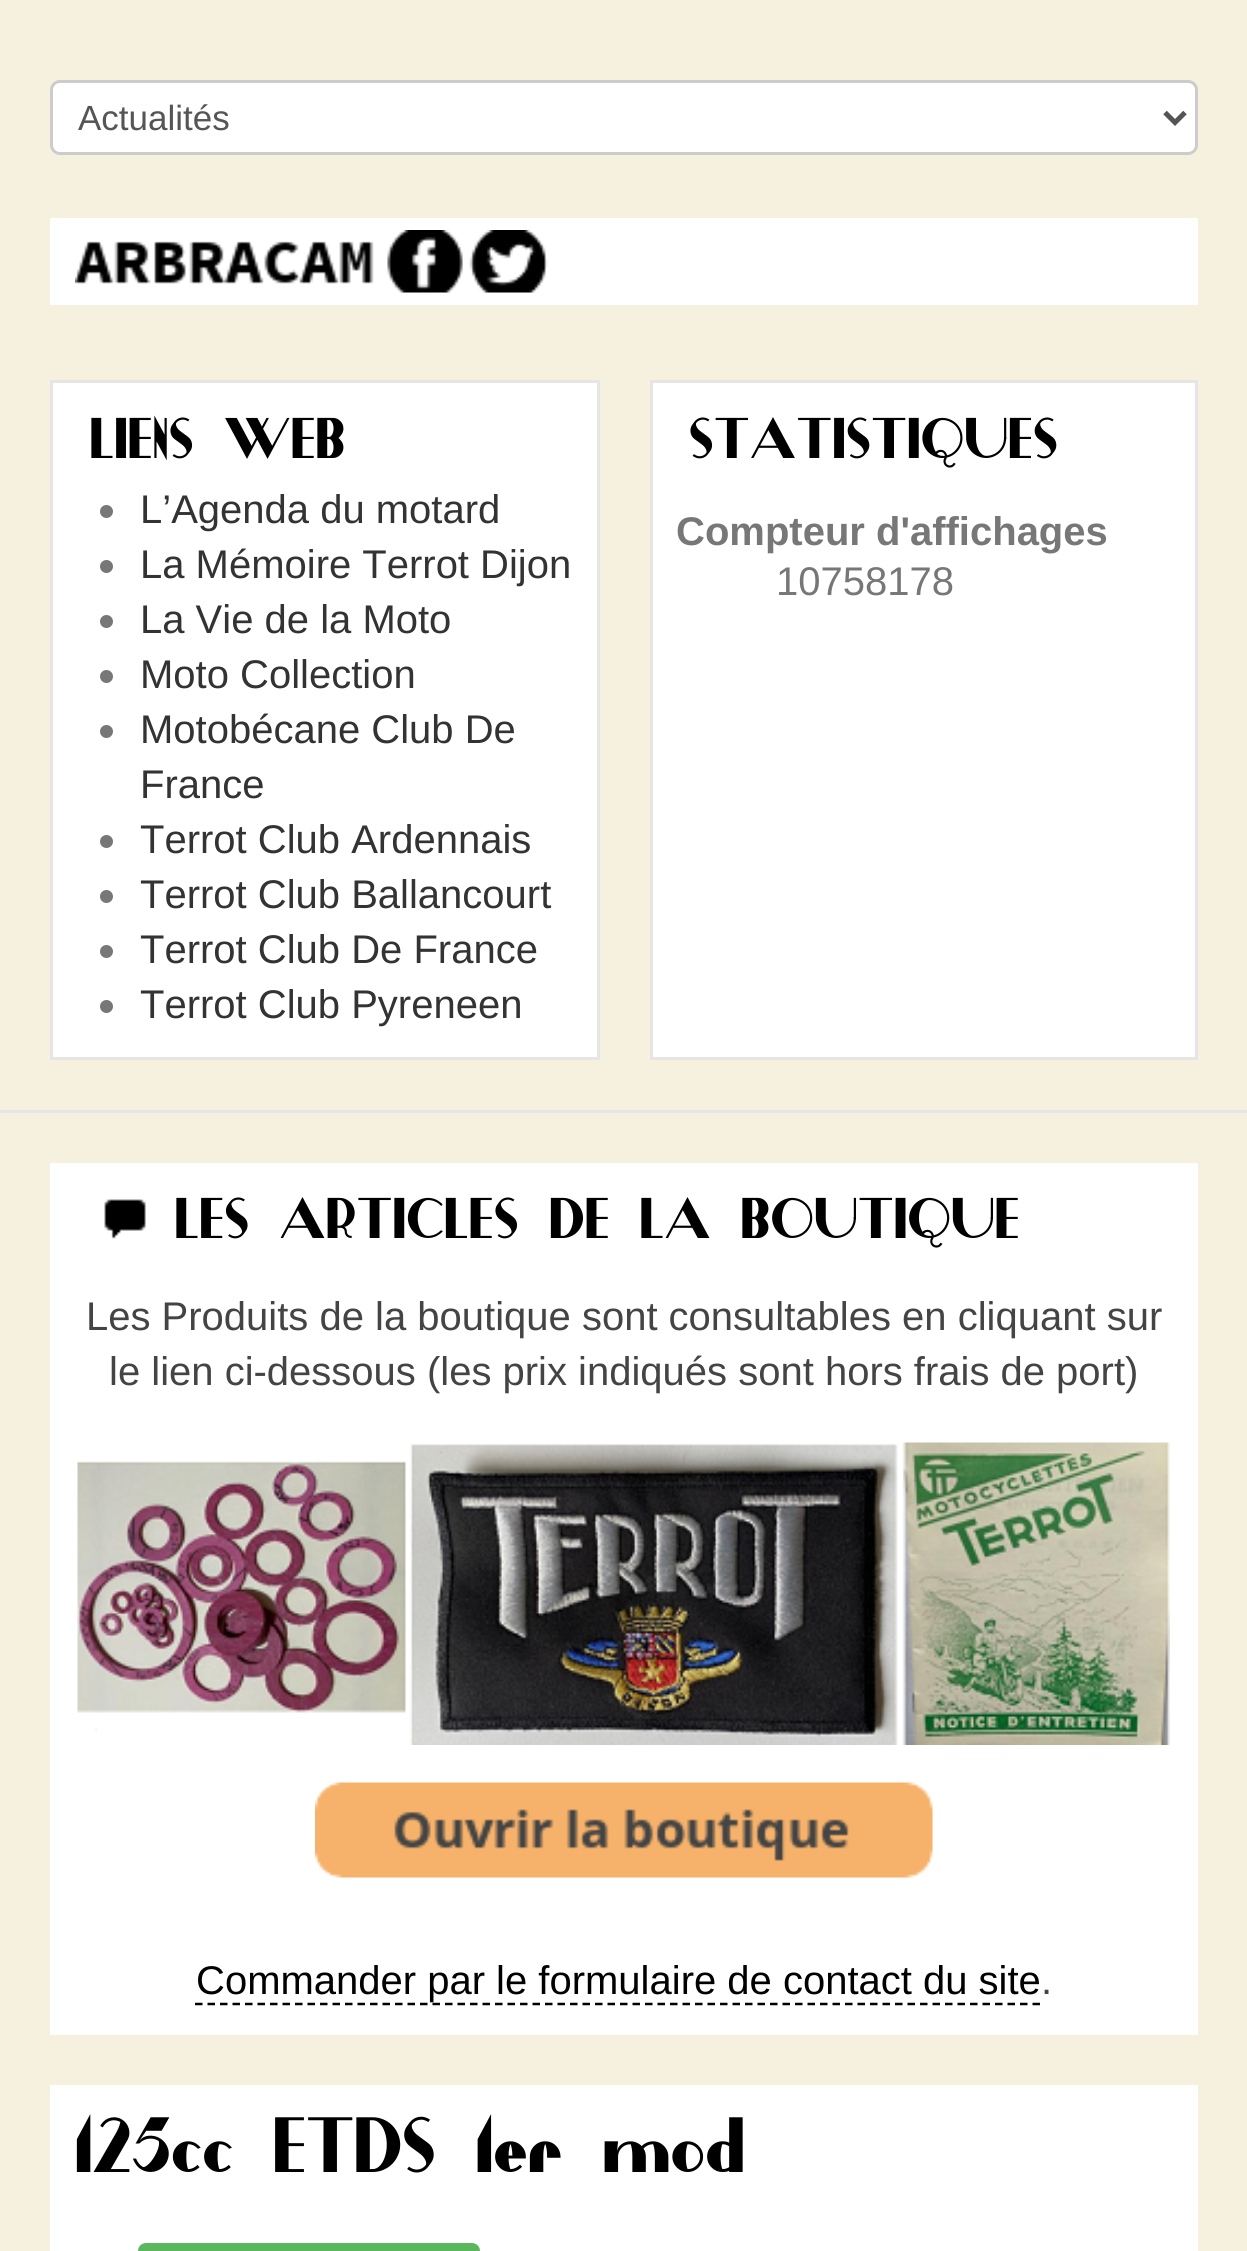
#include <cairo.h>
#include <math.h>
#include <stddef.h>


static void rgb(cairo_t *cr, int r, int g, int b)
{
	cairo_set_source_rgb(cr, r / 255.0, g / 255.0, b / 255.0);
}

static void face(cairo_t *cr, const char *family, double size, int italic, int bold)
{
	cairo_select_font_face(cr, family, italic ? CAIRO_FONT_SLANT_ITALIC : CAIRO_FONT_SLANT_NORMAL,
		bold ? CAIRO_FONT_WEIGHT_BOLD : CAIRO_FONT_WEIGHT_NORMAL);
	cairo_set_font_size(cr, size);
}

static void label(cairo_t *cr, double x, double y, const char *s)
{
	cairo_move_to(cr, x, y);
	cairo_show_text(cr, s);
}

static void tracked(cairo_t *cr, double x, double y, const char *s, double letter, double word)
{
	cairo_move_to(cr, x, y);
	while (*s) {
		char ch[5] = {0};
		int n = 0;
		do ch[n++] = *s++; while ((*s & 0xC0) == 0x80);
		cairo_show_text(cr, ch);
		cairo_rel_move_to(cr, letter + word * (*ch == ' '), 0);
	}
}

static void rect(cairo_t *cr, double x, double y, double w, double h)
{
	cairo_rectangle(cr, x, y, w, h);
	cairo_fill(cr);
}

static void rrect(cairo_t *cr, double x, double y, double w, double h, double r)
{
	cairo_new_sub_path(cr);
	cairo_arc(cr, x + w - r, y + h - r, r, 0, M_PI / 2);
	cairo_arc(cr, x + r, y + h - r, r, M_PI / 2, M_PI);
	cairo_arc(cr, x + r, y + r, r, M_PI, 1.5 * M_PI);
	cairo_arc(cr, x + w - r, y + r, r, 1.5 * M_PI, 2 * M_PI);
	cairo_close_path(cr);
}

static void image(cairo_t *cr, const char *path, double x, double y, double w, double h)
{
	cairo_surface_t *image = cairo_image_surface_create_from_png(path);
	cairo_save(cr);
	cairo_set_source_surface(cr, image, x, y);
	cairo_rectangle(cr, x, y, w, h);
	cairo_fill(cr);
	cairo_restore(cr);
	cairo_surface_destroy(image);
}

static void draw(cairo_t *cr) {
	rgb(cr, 246, 241, 222);
	cairo_paint(cr);
	rgb(cr, 229, 229, 229);
	rect(cr, 0, 1110, 1247, 3);
	rgb(cr, 255, 255, 255);
	rrect(cr, 51.5, 81.5, 1145, 72, 8.5);
	cairo_fill_preserve(cr);
	rgb(cr, 204, 204, 204);
	cairo_set_line_width(cr, 3);
	cairo_stroke(cr);
	cairo_new_path(cr);
	cairo_move_to(cr, 1165, 112.5);
	cairo_line_to(cr, 1175, 122.5);
	cairo_line_to(cr, 1185, 112.5);
	rgb(cr, 85, 85, 85);
	cairo_set_line_width(cr, 5);
	cairo_stroke(cr);
	face(cr, "Liberation Sans", 35, 0, 0);
	label(cr, 78, 130, "Actualités");
	rgb(cr, 255, 255, 255);
	rect(cr, 50, 218, 1148, 87);
	image(cr, "image0.png", 75, 241, 299, 43);
	image(cr, "image1.png", 387, 230, 76, 63);
	image(cr, "image2.png", 469, 230, 79, 63);
	cairo_rectangle(cr, 51.5, 381.5, 547, 677);
	cairo_fill_preserve(cr);
	rgb(cr, 229, 229, 229);
	cairo_set_line_width(cr, 3);
	cairo_stroke(cr);
	face(cr, "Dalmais", 55, 0, 1);
	rgb(cr, 0, 0, 0);
	tracked(cr, 90, 458, "LIENS WEB", 2.5, 0);
	rgb(cr, 119, 119, 119);
	cairo_new_path(cr);
	cairo_arc(cr, 106.5, 511.5, 6.5, 0, 2 * M_PI);
	cairo_fill(cr);
	face(cr, "Liberation Sans", 40, 0, 0);
	rgb(cr, 51, 51, 51);
	label(cr, 140, 523, "L’Agenda du motard");
	rgb(cr, 119, 119, 119);
	cairo_new_path(cr);
	cairo_arc(cr, 106.5, 566.5, 6.5, 0, 2 * M_PI);
	cairo_fill(cr);
	rgb(cr, 51, 51, 51);
	label(cr, 140, 578, "La Mémoire Terrot Dijon");
	rgb(cr, 119, 119, 119);
	cairo_new_path(cr);
	cairo_arc(cr, 106.5, 621.5, 6.5, 0, 2 * M_PI);
	cairo_fill(cr);
	rgb(cr, 51, 51, 51);
	label(cr, 140, 633, "La Vie de la Moto");
	rgb(cr, 119, 119, 119);
	cairo_new_path(cr);
	cairo_arc(cr, 106.5, 676.5, 6.5, 0, 2 * M_PI);
	cairo_fill(cr);
	rgb(cr, 51, 51, 51);
	label(cr, 140, 688, "Moto Collection");
	rgb(cr, 119, 119, 119);
	cairo_new_path(cr);
	cairo_arc(cr, 106.5, 731.5, 6.5, 0, 2 * M_PI);
	cairo_fill(cr);
	rgb(cr, 51, 51, 51);
	label(cr, 140, 743, "Motobécane Club De");
	label(cr, 140, 798, "France");
	rgb(cr, 119, 119, 119);
	cairo_new_path(cr);
	cairo_arc(cr, 106.5, 841.5, 6.5, 0, 2 * M_PI);
	cairo_fill(cr);
	rgb(cr, 51, 51, 51);
	label(cr, 140, 853, "Terrot Club Ardennais");
	rgb(cr, 119, 119, 119);
	cairo_new_path(cr);
	cairo_arc(cr, 106.5, 896.5, 6.5, 0, 2 * M_PI);
	cairo_fill(cr);
	rgb(cr, 51, 51, 51);
	label(cr, 140, 908, "Terrot Club Ballancourt");
	rgb(cr, 119, 119, 119);
	cairo_new_path(cr);
	cairo_arc(cr, 106.5, 951.5, 6.5, 0, 2 * M_PI);
	cairo_fill(cr);
	rgb(cr, 51, 51, 51);
	label(cr, 140, 963, "Terrot Club De France");
	rgb(cr, 119, 119, 119);
	cairo_new_path(cr);
	cairo_arc(cr, 106.5, 1006.5, 6.5, 0, 2 * M_PI);
	cairo_fill(cr);
	rgb(cr, 51, 51, 51);
	label(cr, 140, 1018, "Terrot Club Pyreneen");
	rgb(cr, 255, 255, 255);
	cairo_rectangle(cr, 651.5, 381.5, 545, 677);
	cairo_fill_preserve(cr);
	rgb(cr, 229, 229, 229);
	cairo_stroke(cr);
	face(cr, "Dalmais", 55, 0, 1);
	rgb(cr, 0, 0, 0);
	tracked(cr, 689, 458, "STATISTIQUES", 2.5, 0);
	face(cr, "Liberation Sans", 40, 0, 1);
	rgb(cr, 119, 119, 119);
	label(cr, 676, 545, "Compteur d'affichages");
	face(cr, "Liberation Sans", 40, 0, 0);
	label(cr, 776, 595, "10758178");
	rgb(cr, 255, 255, 255);
	rect(cr, 50, 1163, 1148, 872);
	image(cr, "image3.png", 104, 1199, 42, 40);
	face(cr, "Dalmais", 55, 0, 1);
	rgb(cr, 0, 0, 0);
	tracked(cr, 175, 1238, "LES ARTICLES DE LA BOUTIQUE", 2.5, 0);
	face(cr, "Liberation Sans", 40, 0, 0);
	rgb(cr, 68, 68, 68);
	label(cr, 86, 1330, "Les Produits de la boutique sont consultables en cliquant sur");
	label(cr, 109, 1385, "le lien ci-dessous (les prix indiqués sont hors frais de port)");
	image(cr, "image4.png", 77, 1442, 1093, 303);
	image(cr, "image5.png", 315, 1782, 618, 96);
	cairo_new_path(cr);
	cairo_move_to(cr, 195, 2004);
	cairo_line_to(cr, 1040, 2004);
	rgb(cr, 0, 0, 0);
	cairo_set_line_width(cr, 2.5);
	cairo_set_dash(cr, (double[]){7.5, 5}, 2, 0);
	cairo_stroke(cr);
	label(cr, 196, 1994, "Commander par le formulaire de contact du site");
	rgb(cr, 68, 68, 68);
	label(cr, 1041, 1994, ".");
	rgb(cr, 255, 255, 255);
	rect(cr, 50, 2085, 1148, 166);
	face(cr, "Dalmais", 75, 0, 1);
	rgb(cr, 0, 0, 0);
	tracked(cr, 75, 2172, "125cc ETDS 1er mod", 2.5, 0);
	rgb(cr, 91, 183, 91);
	rrect(cr, 138, 2243, 342, 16, 8);
	cairo_fill(cr);
}

int main(void) {
	cairo_surface_t *surface = cairo_image_surface_create(CAIRO_FORMAT_RGB24, 1247, 2251);
	cairo_t *cr = cairo_create(surface);
	cairo_font_options_t *options = cairo_font_options_create();
	cairo_font_options_set_hint_metrics(options, CAIRO_HINT_METRICS_OFF);
	cairo_font_options_set_hint_style(options, CAIRO_HINT_STYLE_NONE);
	cairo_set_font_options(cr, options);
	cairo_set_miter_limit(cr, 4);
	draw(cr);
	cairo_surface_write_to_png(surface, "render.png");
	cairo_font_options_destroy(options);
	cairo_destroy(cr);
	cairo_surface_destroy(surface);
	return 0;
}
